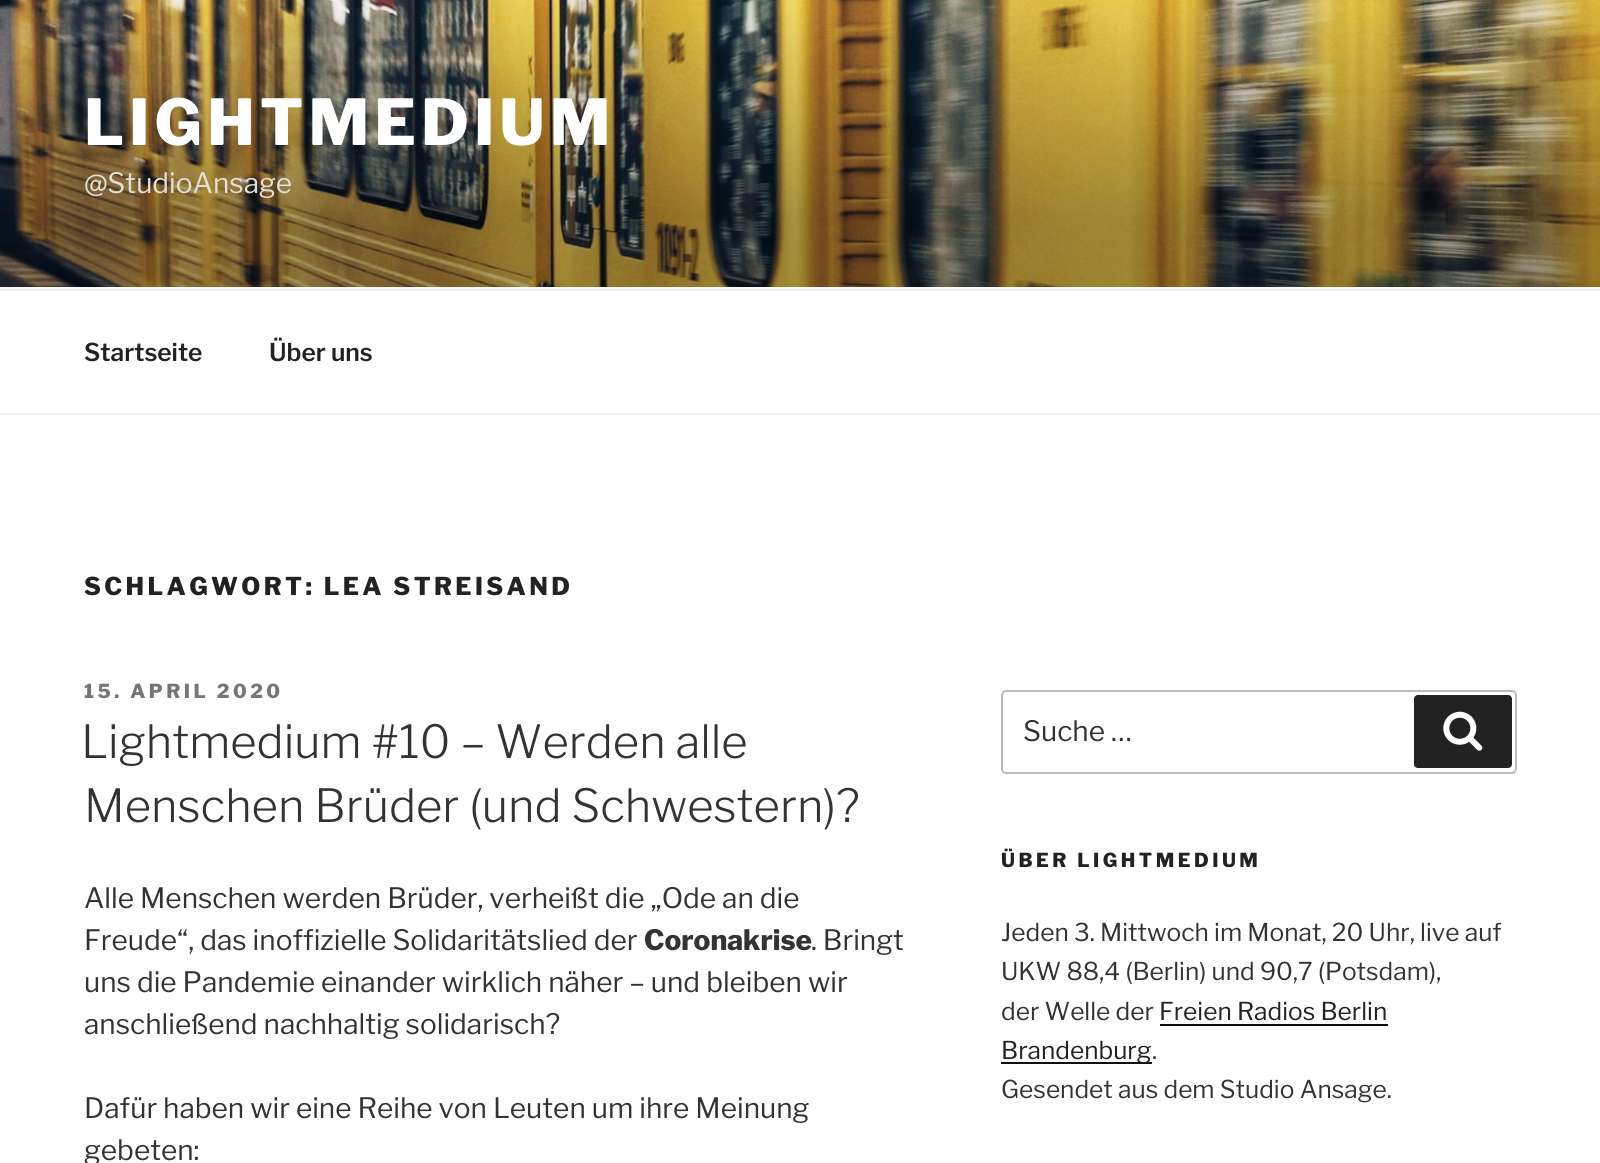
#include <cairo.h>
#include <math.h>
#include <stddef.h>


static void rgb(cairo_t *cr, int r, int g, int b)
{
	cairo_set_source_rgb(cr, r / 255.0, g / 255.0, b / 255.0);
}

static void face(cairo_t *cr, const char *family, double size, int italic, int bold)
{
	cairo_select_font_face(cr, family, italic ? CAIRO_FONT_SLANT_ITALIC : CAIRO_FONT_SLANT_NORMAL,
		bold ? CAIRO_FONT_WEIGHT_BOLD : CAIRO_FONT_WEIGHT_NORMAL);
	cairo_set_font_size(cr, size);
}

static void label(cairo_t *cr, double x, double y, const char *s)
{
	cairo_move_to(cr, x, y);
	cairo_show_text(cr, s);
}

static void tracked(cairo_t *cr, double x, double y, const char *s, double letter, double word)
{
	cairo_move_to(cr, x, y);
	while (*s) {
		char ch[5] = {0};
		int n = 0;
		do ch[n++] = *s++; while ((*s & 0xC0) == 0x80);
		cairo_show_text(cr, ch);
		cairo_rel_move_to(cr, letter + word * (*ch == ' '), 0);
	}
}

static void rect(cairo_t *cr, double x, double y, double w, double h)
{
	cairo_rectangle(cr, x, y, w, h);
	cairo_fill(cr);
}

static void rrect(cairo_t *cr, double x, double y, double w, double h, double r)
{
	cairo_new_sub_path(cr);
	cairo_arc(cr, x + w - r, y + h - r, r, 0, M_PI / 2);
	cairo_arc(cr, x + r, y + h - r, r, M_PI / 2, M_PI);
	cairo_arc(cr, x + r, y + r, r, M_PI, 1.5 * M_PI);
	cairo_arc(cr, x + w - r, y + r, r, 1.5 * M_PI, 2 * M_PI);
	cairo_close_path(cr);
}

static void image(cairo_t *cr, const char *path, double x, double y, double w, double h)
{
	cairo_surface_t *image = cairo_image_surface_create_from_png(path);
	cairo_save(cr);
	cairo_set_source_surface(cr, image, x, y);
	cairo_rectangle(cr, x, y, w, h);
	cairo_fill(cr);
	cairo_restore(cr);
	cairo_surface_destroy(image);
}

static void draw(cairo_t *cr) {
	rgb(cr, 255, 255, 255);
	cairo_paint(cr);
	rgb(cr, 250, 250, 250);
	rect(cr, 0, 287, 1600, 2);
	image(cr, "image0.png", 0, 0, 1600, 287);
	face(cr, "Libre Franklin ExtraBold", 63, 0, 0);
	rgb(cr, 255, 255, 255);
	tracked(cr, 84, 145, "LIGHTMEDIUM", 5, 0);
	face(cr, "Libre Franklin", 28, 0, 0);
	rgb(cr, 228, 223, 214);
	label(cr, 84, 193, "@StudioAnsage");
	rgb(cr, 238, 238, 238);
	rect(cr, 0, 289, 1600, 2);
	rect(cr, 0, 413, 1600, 2);
	face(cr, "Libre Franklin SemiBold", 24.5, 0, 0);
	rgb(cr, 34, 34, 34);
	label(cr, 84, 361, "Startseite");
	label(cr, 269, 361, "Über uns");
	face(cr, "Libre Franklin ExtraBold", 24.5, 0, 0);
	tracked(cr, 84, 595, "SCHLAGWORT: LEA STREISAND", 3.4, 0);
	face(cr, "Libre Franklin ExtraBold", 19.25, 0, 0);
	rgb(cr, 118, 118, 118);
	tracked(cr, 84, 698, "15. APRIL 2020", 3.5, 0);
	face(cr, "Libre Franklin Light", 45.5, 0, 0);
	rgb(cr, 51, 51, 51);
	label(cr, 81, 758, "Lightmedium #10 – Werden alle");
	label(cr, 84, 822, "Menschen Brüder (und Schwestern)?");
	face(cr, "Libre Franklin", 28, 0, 0);
	label(cr, 84, 908, "Alle Menschen werden Brüder, verheißt die „Ode an die");
	label(cr, 84, 950, "Freude“, das inoffizielle Solidaritätslied der");
	face(cr, "Libre Franklin ExtraBold", 28, 0, 0);
	label(cr, 644, 950, "Coronakrise");
	face(cr, "Libre Franklin", 28, 0, 0);
	label(cr, 811, 950, ". Bringt");
	label(cr, 84, 992, "uns die Pandemie einander wirklich näher – und bleiben wir");
	label(cr, 84, 1034, "anschließend nachhaltig solidarisch?");
	label(cr, 84, 1118, "Dafür haben wir eine Reihe von Leuten um ihre Meinung");
	label(cr, 84, 1160, "gebeten:");
	rrect(cr, 1002, 691, 514, 82, 4);
	rgb(cr, 187, 187, 187);
	cairo_stroke(cr);
	rgb(cr, 51, 51, 51);
	label(cr, 1023, 741, "Suche …");
	rgb(cr, 34, 34, 34);
	rrect(cr, 1414, 695, 98, 73, 4);
	cairo_fill(cr);
	image(cr, "image1.png", 1443, 711, 40, 40);
	face(cr, "Libre Franklin ExtraBold", 19.25, 0, 0);
	tracked(cr, 1001, 867, "ÜBER LIGHTMEDIUM", 3.5, 0);
	face(cr, "Libre Franklin", 24.5, 0, 0);
	rgb(cr, 51, 51, 51);
	label(cr, 1001, 941, "Jeden 3. Mittwoch im Monat, 20 Uhr, live auf");
	label(cr, 1001, 980, "UKW 88,4 (Berlin) und 90,7 (Potsdam),");
	label(cr, 1001, 1020, "der Welle der");
	rgb(cr, 34, 34, 34);
	label(cr, 1159, 1020, "Freien Radios Berlin");
	rgb(cr, 15, 15, 15);
	rect(cr, 1160, 1024, 228, 2);
	rect(cr, 1001, 1062, 151, 2);
	rgb(cr, 34, 34, 34);
	label(cr, 1001, 1059, "Brandenburg");
	rgb(cr, 51, 51, 51);
	label(cr, 1152, 1059, ".");
	label(cr, 1001, 1098, "Gesendet aus dem Studio Ansage.");
}

int main(void) {
	cairo_surface_t *surface = cairo_image_surface_create(CAIRO_FORMAT_RGB24, 1600, 1163);
	cairo_t *cr = cairo_create(surface);
	cairo_font_options_t *options = cairo_font_options_create();
	cairo_font_options_set_hint_metrics(options, CAIRO_HINT_METRICS_OFF);
	cairo_font_options_set_hint_style(options, CAIRO_HINT_STYLE_NONE);
	cairo_set_font_options(cr, options);
	cairo_set_miter_limit(cr, 4);
	draw(cr);
	cairo_surface_write_to_png(surface, "render.png");
	cairo_font_options_destroy(options);
	cairo_destroy(cr);
	cairo_surface_destroy(surface);
	return 0;
}
